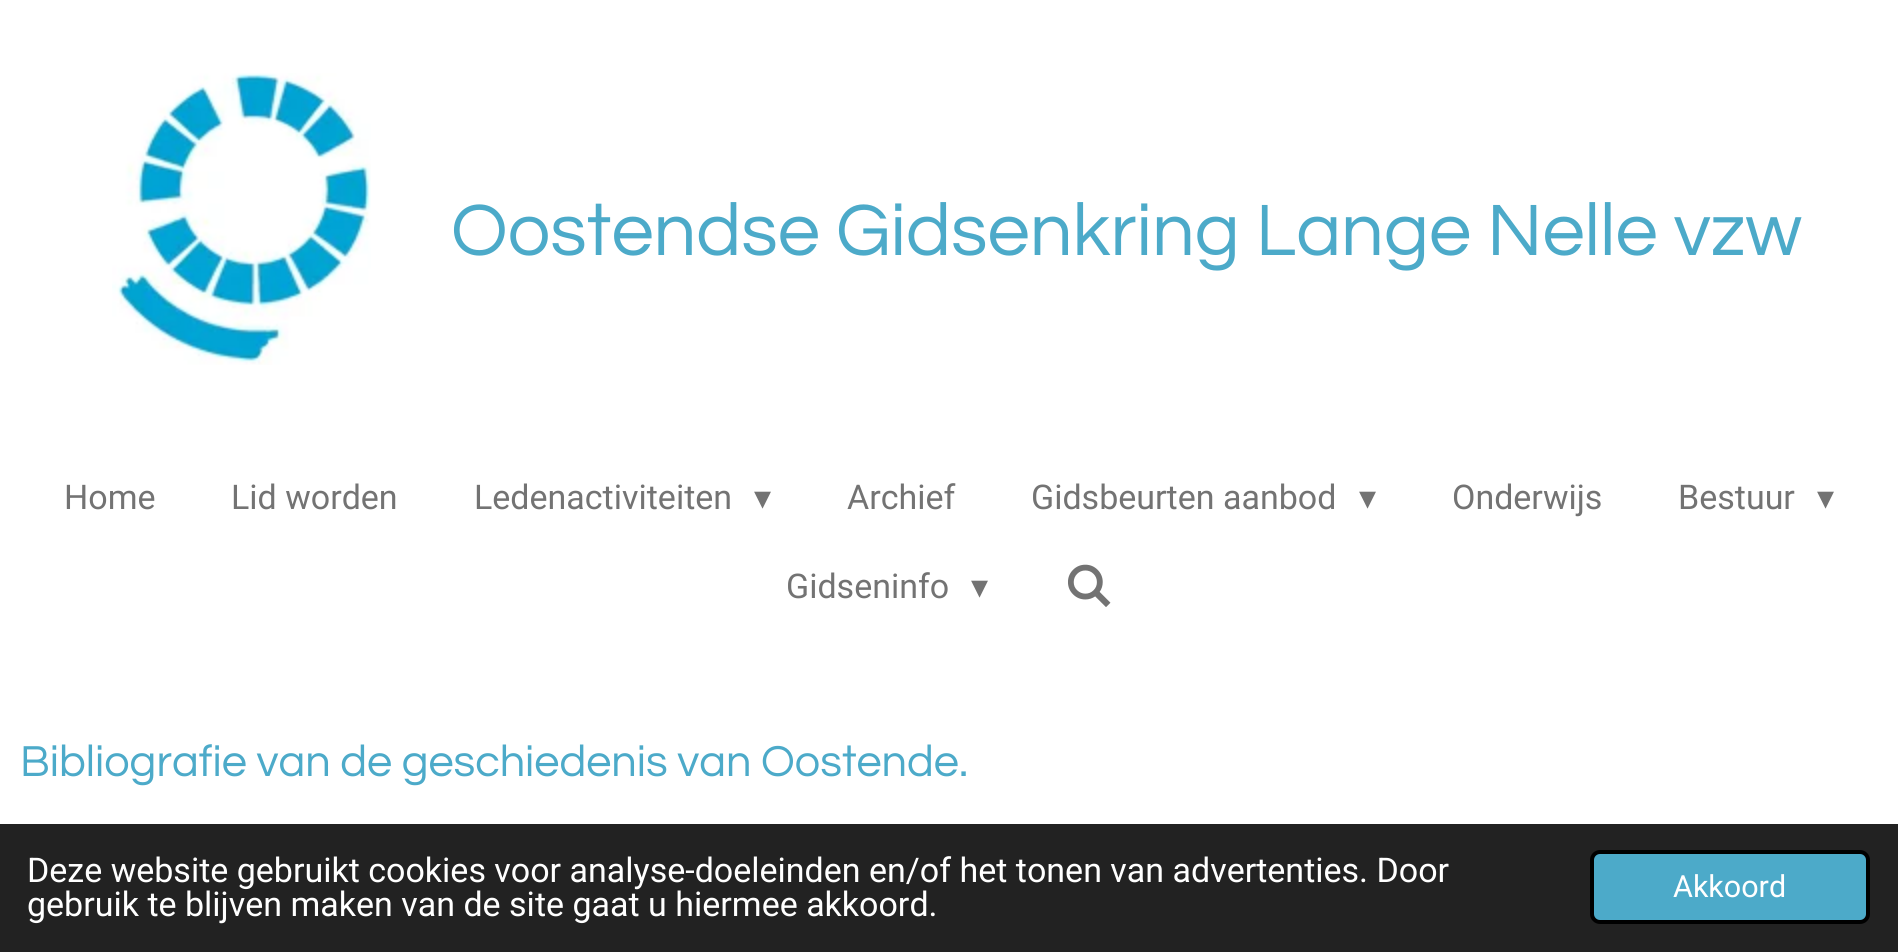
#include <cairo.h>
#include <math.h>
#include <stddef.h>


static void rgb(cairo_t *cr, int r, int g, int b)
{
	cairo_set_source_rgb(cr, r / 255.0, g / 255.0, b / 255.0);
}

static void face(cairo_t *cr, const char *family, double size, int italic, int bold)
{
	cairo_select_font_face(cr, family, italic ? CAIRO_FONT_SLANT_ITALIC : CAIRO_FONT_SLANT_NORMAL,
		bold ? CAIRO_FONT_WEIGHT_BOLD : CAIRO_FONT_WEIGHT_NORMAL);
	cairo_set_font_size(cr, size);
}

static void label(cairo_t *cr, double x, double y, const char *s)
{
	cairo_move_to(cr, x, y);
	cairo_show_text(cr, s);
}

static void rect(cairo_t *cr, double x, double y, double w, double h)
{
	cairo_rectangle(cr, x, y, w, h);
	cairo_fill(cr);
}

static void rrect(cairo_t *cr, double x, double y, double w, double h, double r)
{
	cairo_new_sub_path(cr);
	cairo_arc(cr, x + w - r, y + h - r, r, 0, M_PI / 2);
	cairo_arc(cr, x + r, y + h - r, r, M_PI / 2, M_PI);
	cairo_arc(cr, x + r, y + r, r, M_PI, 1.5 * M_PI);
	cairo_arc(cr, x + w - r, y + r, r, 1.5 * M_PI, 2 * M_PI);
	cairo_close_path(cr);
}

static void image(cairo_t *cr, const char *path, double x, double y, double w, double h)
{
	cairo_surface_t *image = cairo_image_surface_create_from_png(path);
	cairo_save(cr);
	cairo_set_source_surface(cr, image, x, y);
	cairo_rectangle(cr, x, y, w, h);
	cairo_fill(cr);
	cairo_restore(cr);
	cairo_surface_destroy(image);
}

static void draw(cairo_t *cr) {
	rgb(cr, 255, 255, 255);
	cairo_paint(cr);
	image(cr, "image0.png", 112, 73, 259, 292);
	face(cr, "Questrial", 75.6, 0, 0);
	rgb(cr, 76, 170, 201);
	label(cr, 451, 255, "Oostendse Gidsenkring Lange Nelle vzw");
	face(cr, "Roboto", 34, 0, 0);
	rgb(cr, 115, 115, 115);
	label(cr, 64, 509, "Home");
	label(cr, 231, 509, "Lid worden");
	label(cr, 474, 509, "Ledenactiviteiten");
	face(cr, "DejaVu Sans", 34, 0, 0);
	label(cr, 754, 509, "▾");
	face(cr, "Roboto", 34, 0, 0);
	label(cr, 847, 509, "Archief");
	label(cr, 1031, 509, "Gidsbeurten aanbod");
	face(cr, "DejaVu Sans", 34, 0, 0);
	label(cr, 1359, 509, "▾");
	face(cr, "Roboto", 34, 0, 0);
	label(cr, 1452, 509, "Onderwijs");
	label(cr, 1678, 509, "Bestuur");
	face(cr, "DejaVu Sans", 34, 0, 0);
	label(cr, 1817, 509, "▾");
	face(cr, "Roboto", 34, 0, 0);
	label(cr, 786, 598, "Gidseninfo");
	face(cr, "DejaVu Sans", 34, 0, 0);
	label(cr, 971, 598, "▾");
	image(cr, "image1.png", 1068, 564, 43, 43);
	face(cr, "Questrial", 45, 0, 0);
	rgb(cr, 76, 170, 201);
	label(cr, 20, 776, "Bibliografie van de geschiedenis van Oostende.");
	rgb(cr, 34, 34, 34);
	rect(cr, 0, 824, 1898, 128);
	face(cr, "Roboto", 34, 0, 0);
	rgb(cr, 255, 255, 255);
	label(cr, 27, 882, "Deze website gebruikt cookies voor analyse-doeleinden en/of het tonen van advertenties. Door");
	label(cr, 27, 916, "gebruik te blijven maken van de site gaat u hiermee akkoord.");
	rgb(cr, 76, 170, 201);
	rrect(cr, 1592, 852, 276, 70, 8);
	cairo_fill_preserve(cr);
	rgb(cr, 0, 0, 0);
	cairo_set_line_width(cr, 4);
	cairo_stroke(cr);
	face(cr, "Roboto", 30.5, 0, 0);
	rgb(cr, 255, 255, 255);
	label(cr, 1673, 897, "Akkoord");
}

int main(void) {
	cairo_surface_t *surface = cairo_image_surface_create(CAIRO_FORMAT_RGB24, 1898, 952);
	cairo_t *cr = cairo_create(surface);
	cairo_font_options_t *options = cairo_font_options_create();
	cairo_font_options_set_hint_metrics(options, CAIRO_HINT_METRICS_OFF);
	cairo_font_options_set_hint_style(options, CAIRO_HINT_STYLE_NONE);
	cairo_set_font_options(cr, options);
	cairo_set_miter_limit(cr, 4);
	draw(cr);
	cairo_surface_write_to_png(surface, "render.png");
	cairo_font_options_destroy(options);
	cairo_destroy(cr);
	cairo_surface_destroy(surface);
	return 0;
}
